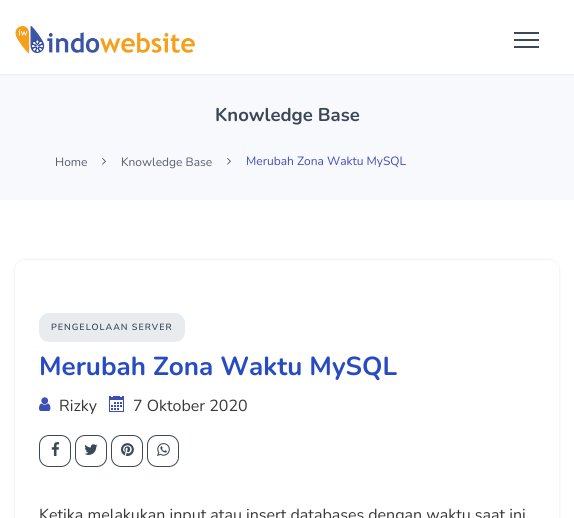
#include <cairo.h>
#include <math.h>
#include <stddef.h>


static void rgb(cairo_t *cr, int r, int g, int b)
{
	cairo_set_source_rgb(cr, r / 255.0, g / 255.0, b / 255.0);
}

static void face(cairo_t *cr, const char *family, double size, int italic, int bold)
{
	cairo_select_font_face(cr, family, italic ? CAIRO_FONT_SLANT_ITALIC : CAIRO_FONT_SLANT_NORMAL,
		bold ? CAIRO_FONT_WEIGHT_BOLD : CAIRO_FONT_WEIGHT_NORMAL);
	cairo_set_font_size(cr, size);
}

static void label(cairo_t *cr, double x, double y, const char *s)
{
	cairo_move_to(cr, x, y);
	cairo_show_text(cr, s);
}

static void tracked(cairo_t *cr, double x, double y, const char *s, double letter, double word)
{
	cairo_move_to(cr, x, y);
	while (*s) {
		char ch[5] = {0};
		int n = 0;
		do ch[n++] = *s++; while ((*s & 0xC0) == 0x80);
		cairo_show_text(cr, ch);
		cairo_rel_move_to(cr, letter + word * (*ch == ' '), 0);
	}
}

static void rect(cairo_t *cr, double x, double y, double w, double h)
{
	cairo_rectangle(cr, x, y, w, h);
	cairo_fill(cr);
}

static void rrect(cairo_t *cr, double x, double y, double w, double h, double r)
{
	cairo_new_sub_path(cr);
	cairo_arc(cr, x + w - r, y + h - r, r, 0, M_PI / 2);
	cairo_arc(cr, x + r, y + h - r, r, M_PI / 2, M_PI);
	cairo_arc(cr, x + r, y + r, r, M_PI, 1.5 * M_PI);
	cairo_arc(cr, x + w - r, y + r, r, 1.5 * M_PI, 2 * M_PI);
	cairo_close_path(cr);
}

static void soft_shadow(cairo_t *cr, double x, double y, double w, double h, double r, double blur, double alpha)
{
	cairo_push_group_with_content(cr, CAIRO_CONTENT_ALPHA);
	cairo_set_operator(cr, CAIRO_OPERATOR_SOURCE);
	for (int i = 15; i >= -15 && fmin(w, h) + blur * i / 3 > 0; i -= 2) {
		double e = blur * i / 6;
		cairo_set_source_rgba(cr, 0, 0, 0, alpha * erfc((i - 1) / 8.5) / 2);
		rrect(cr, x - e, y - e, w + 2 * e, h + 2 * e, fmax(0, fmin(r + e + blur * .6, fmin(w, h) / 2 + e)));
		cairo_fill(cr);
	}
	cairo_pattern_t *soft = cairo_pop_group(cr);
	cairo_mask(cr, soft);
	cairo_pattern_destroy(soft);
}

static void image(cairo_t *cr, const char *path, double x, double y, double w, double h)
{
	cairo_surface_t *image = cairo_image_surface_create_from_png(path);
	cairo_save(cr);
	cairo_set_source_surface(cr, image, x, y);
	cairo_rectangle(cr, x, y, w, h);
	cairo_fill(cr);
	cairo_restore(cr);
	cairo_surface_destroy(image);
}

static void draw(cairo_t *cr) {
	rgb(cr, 255, 255, 255);
	cairo_paint(cr);
	rgb(cr, 248, 249, 252);
	rect(cr, 0, 74, 574, 126);
	rgb(cr, 60, 72, 88);
	soft_shadow(cr, 0, 0, 574, 74, 0, 1.5, 0.15);
	rgb(cr, 255, 255, 255);
	rect(cr, 0, 0, 574, 74);
	image(cr, "image0.png", 15, 26, 180, 27);
	rgb(cr, 60, 72, 88);
	rect(cr, 514, 32, 25, 2);
	rect(cr, 514, 39, 25, 2);
	rect(cr, 514, 46, 25, 2);
	face(cr, "Nunito", 18.5, 0, 1);
	label(cr, 215, 121, "Knowledge Base");
	face(cr, "Nunito", 12, 0, 0);
	rgb(cr, 90, 93, 115);
	label(cr, 55, 166, "Home");
	image(cr, "image1.png", 102, 158, 4, 7);
	label(cr, 121, 166, "Knowledge Base");
	image(cr, "image1.png", 227, 158, 4, 7);
	rgb(cr, 62, 78, 183);
	label(cr, 246, 165, "Merubah Zona Waktu MySQL");
	cairo_save(cr);
	cairo_set_fill_rule(cr, CAIRO_FILL_RULE_EVEN_ODD);
	cairo_new_path(cr);
	cairo_move_to(cr, 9, 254);
	cairo_line_to(cr, 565, 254);
	cairo_line_to(cr, 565, 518);
	cairo_line_to(cr, 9, 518);
	cairo_close_path(cr);
	cairo_move_to(cr, 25, 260);
	cairo_line_to(cr, 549, 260);
	cairo_curve_to(cr, 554.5, 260, 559, 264.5, 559, 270);
	cairo_line_to(cr, 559, 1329);
	cairo_curve_to(cr, 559, 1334.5, 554.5, 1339, 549, 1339);
	cairo_line_to(cr, 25, 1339);
	cairo_curve_to(cr, 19.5, 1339, 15, 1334.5, 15, 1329);
	cairo_line_to(cr, 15, 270);
	cairo_curve_to(cr, 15, 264.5, 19.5, 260, 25, 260);
	cairo_close_path(cr);
	cairo_clip(cr);
	rgb(cr, 60, 72, 88);
	soft_shadow(cr, 15, 260, 544, 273, 10, 1.5, 0.15);
	cairo_restore(cr);
	rgb(cr, 233, 236, 239);
	rrect(cr, 39, 313, 146, 29, 10);
	cairo_fill(cr);
	face(cr, "Nunito SemiBold", 9, 0, 0);
	rgb(cr, 60, 72, 88);
	tracked(cr, 51, 330, "PENGELOLAAN SERVER", 1, 0);
	face(cr, "Nunito", 26, 0, 1);
	rgb(cr, 40, 75, 193);
	label(cr, 39, 375, "Merubah Zona Waktu MySQL");
	image(cr, "image2.png", 39, 397, 12, 14);
	face(cr, "Nunito", 16, 0, 0);
	rgb(cr, 56, 56, 56);
	label(cr, 59, 411, "Rizky");
	image(cr, "image3.png", 109, 396, 15, 16);
	label(cr, 133, 411, "7 Oktober 2020");
	rrect(cr, 39.5, 435.5, 31, 31, 9.5);
	rgb(cr, 60, 72, 88);
	cairo_set_line_width(cr, 1);
	cairo_stroke(cr);
	image(cr, "image4.png", 51, 442, 9, 14);
	rrect(cr, 75.5, 435.5, 31, 31, 9.5);
	cairo_stroke(cr);
	image(cr, "image5.png", 84, 444, 14, 11);
	rrect(cr, 111.5, 435.5, 31, 31, 9.5);
	cairo_stroke(cr);
	image(cr, "image6.png", 121, 443, 13, 13);
	rrect(cr, 147.5, 435.5, 31, 31, 9.5);
	cairo_stroke(cr);
	image(cr, "image7.png", 157, 443, 13, 13);
	rgb(cr, 56, 56, 56);
	label(cr, 39, 520, "Ketika melakukan input atau insert databases dengan waktu saat ini");
}

int main(void) {
	cairo_surface_t *surface = cairo_image_surface_create(CAIRO_FORMAT_RGB24, 574, 518);
	cairo_t *cr = cairo_create(surface);
	cairo_font_options_t *options = cairo_font_options_create();
	cairo_font_options_set_hint_metrics(options, CAIRO_HINT_METRICS_OFF);
	cairo_font_options_set_hint_style(options, CAIRO_HINT_STYLE_NONE);
	cairo_set_font_options(cr, options);
	cairo_set_miter_limit(cr, 4);
	draw(cr);
	cairo_surface_write_to_png(surface, "render.png");
	cairo_font_options_destroy(options);
	cairo_destroy(cr);
	cairo_surface_destroy(surface);
	return 0;
}
